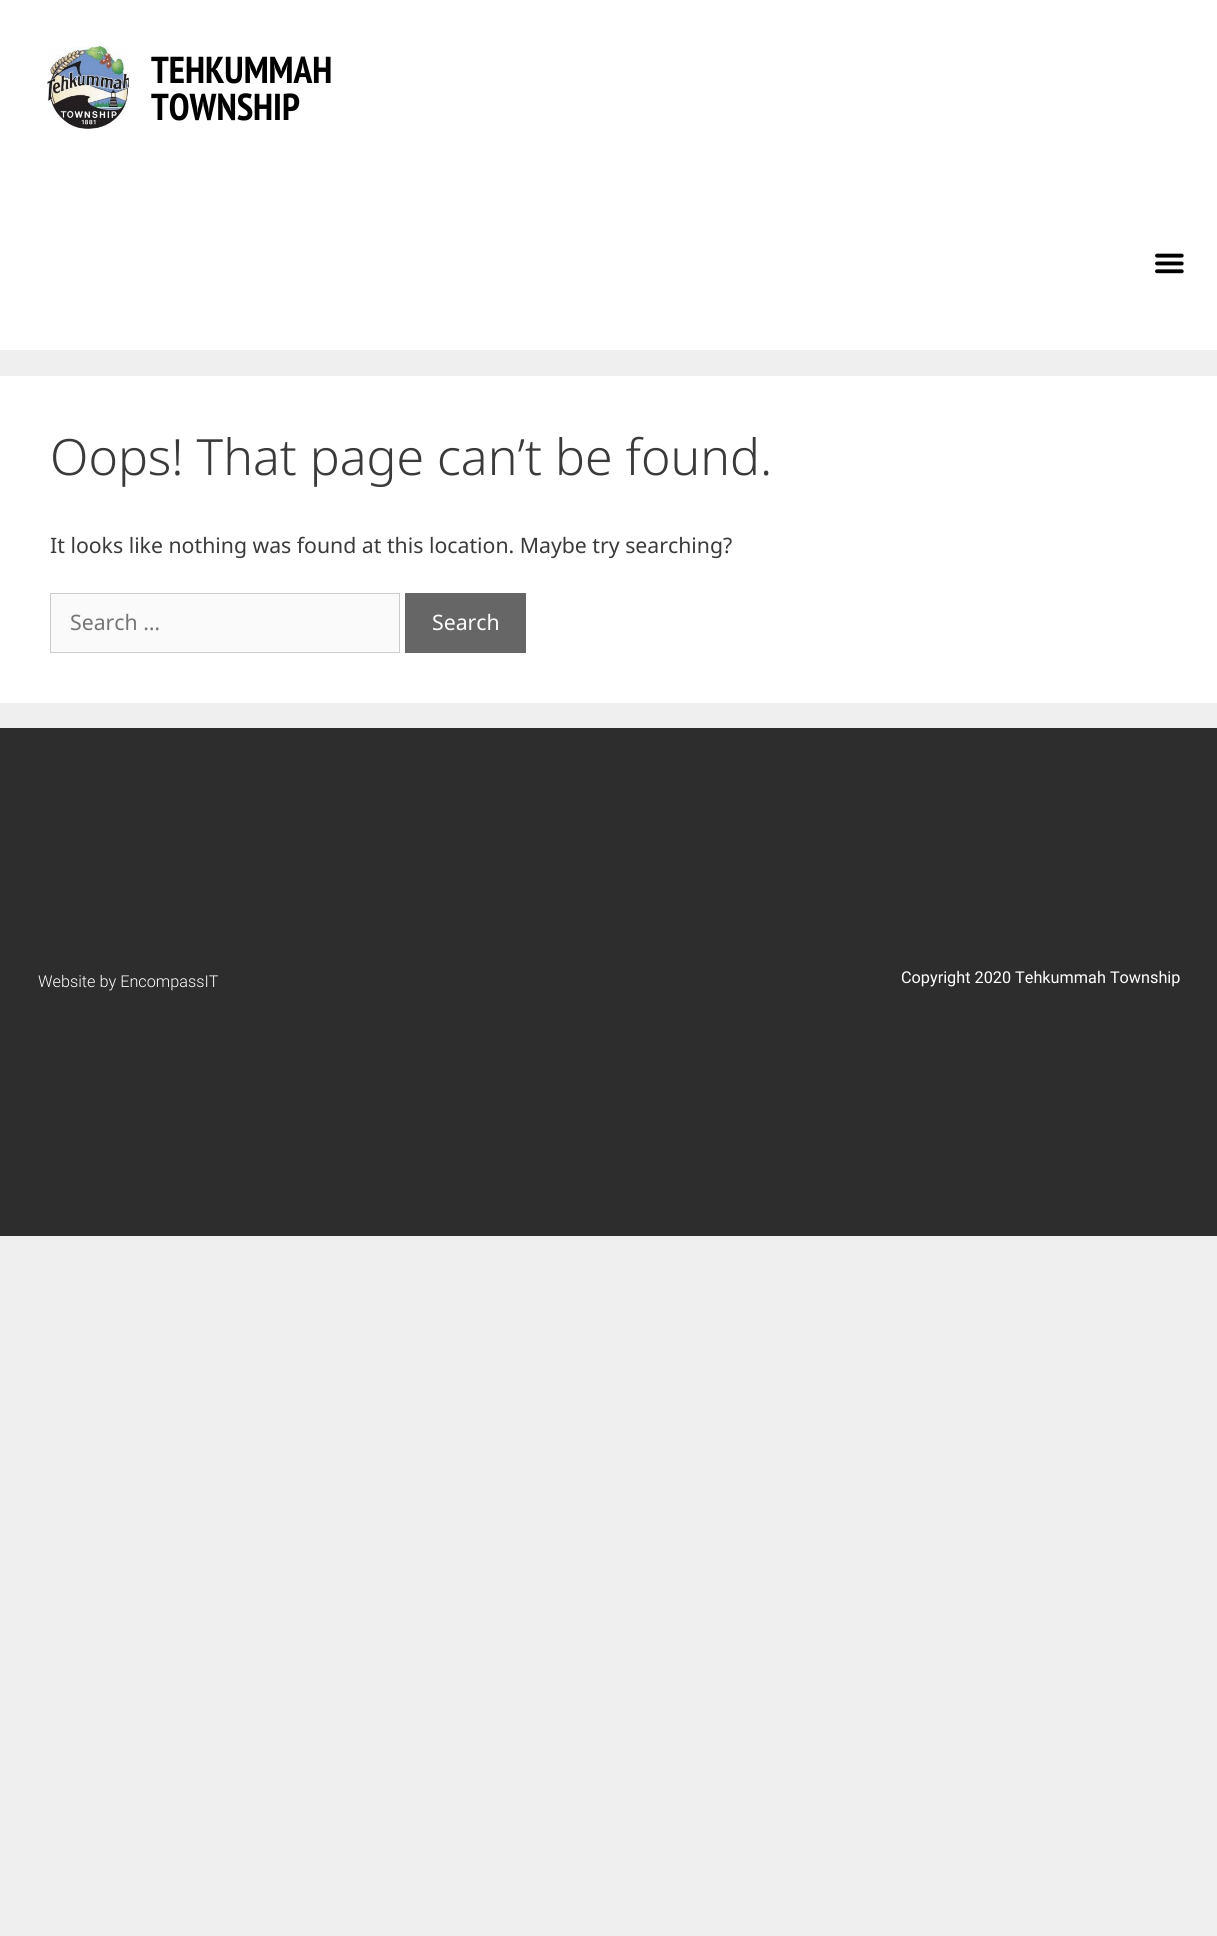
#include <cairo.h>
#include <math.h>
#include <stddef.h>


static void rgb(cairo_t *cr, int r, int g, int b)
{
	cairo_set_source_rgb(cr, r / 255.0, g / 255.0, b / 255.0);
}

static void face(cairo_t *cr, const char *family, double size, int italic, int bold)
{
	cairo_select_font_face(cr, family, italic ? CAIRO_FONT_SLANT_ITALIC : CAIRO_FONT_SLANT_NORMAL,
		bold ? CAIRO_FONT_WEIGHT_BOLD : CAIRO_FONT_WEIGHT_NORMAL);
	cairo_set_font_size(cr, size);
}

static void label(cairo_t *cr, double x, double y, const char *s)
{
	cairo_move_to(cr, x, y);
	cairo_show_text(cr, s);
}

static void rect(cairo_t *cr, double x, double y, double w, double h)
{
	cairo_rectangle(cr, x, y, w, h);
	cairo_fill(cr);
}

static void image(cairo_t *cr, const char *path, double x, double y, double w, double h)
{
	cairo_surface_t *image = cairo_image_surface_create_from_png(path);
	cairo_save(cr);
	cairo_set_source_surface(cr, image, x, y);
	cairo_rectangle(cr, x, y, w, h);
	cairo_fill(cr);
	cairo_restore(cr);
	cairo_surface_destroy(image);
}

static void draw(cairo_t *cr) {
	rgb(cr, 239, 239, 239);
	cairo_paint(cr);
	rgb(cr, 255, 255, 255);
	rect(cr, 0, 0, 1217, 350);
	image(cr, "image0.png", 47, 46, 82, 83);
	face(cr, "PT Sans Narrow", 37.5, 0, 1);
	rgb(cr, 0, 0, 0);
	label(cr, 151, 83, "TEHKUMMAH");
	label(cr, 151, 120, "TOWNSHIP");
	image(cr, "image1.png", 1155, 253, 29, 21);
	rgb(cr, 255, 255, 255);
	rect(cr, 0, 376, 1217, 327);
	face(cr, "Noto Sans Light", 50, 0, 0);
	rgb(cr, 58, 58, 58);
	label(cr, 50, 475, "Oops! That page can’t be found.");
	face(cr, "Noto Sans", 21.25, 0, 0);
	label(cr, 50, 553, "It looks like nothing was found at this location. Maybe try searching?");
	rgb(cr, 250, 250, 250);
	cairo_rectangle(cr, 50.5, 593.5, 349, 59);
	cairo_fill_preserve(cr);
	rgb(cr, 204, 204, 204);
	cairo_set_line_width(cr, 1);
	cairo_stroke(cr);
	rgb(cr, 117, 117, 117);
	label(cr, 70, 630, "Search …");
	rgb(cr, 102, 102, 102);
	rect(cr, 405, 593, 121, 60);
	rgb(cr, 255, 255, 255);
	label(cr, 432, 630, "Search");
	rgb(cr, 45, 45, 45);
	rect(cr, 0, 728, 1217, 508);
	face(cr, "Roboto Light", 16.25, 0, 0);
	rgb(cr, 255, 255, 255);
	label(cr, 38, 987, "Website by EncompassIT");
	face(cr, "Roboto", 16.25, 0, 0);
	label(cr, 901, 983, "Copyright 2020 Tehkummah Township");
}

int main(void) {
	cairo_surface_t *surface = cairo_image_surface_create(CAIRO_FORMAT_RGB24, 1217, 1936);
	cairo_t *cr = cairo_create(surface);
	cairo_font_options_t *options = cairo_font_options_create();
	cairo_font_options_set_hint_metrics(options, CAIRO_HINT_METRICS_OFF);
	cairo_font_options_set_hint_style(options, CAIRO_HINT_STYLE_NONE);
	cairo_set_font_options(cr, options);
	cairo_set_miter_limit(cr, 4);
	draw(cr);
	cairo_surface_write_to_png(surface, "render.png");
	cairo_font_options_destroy(options);
	cairo_destroy(cr);
	cairo_surface_destroy(surface);
	return 0;
}
